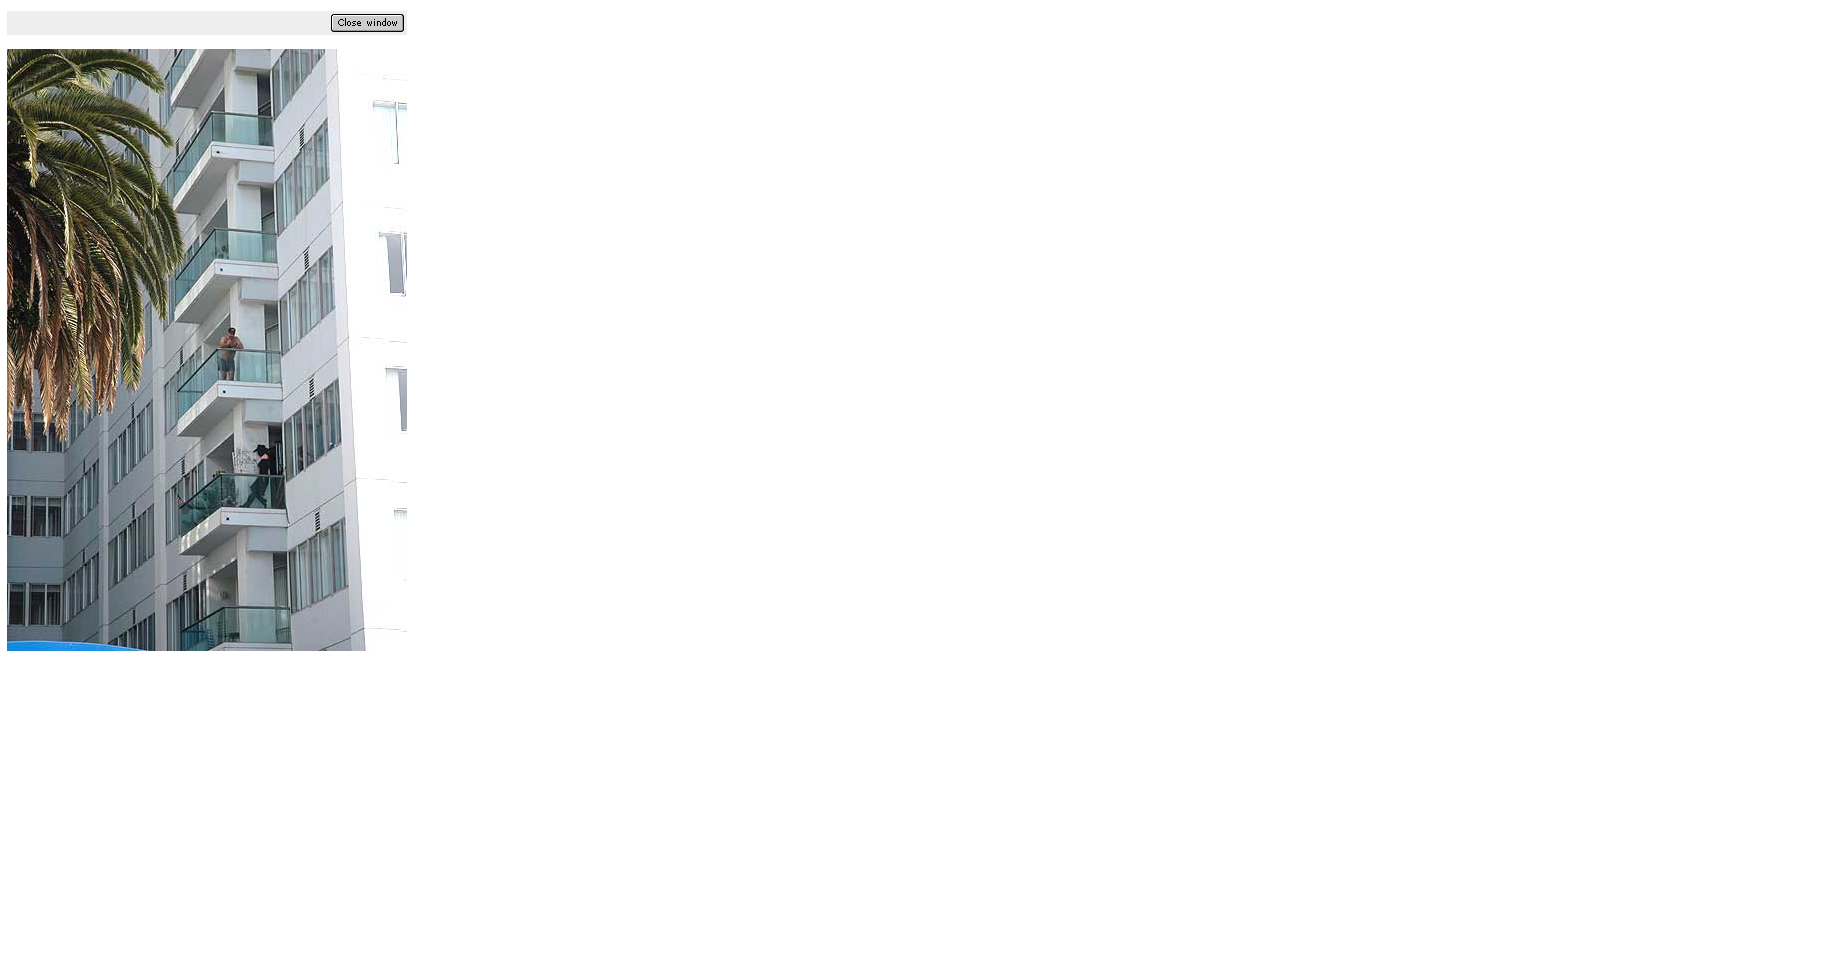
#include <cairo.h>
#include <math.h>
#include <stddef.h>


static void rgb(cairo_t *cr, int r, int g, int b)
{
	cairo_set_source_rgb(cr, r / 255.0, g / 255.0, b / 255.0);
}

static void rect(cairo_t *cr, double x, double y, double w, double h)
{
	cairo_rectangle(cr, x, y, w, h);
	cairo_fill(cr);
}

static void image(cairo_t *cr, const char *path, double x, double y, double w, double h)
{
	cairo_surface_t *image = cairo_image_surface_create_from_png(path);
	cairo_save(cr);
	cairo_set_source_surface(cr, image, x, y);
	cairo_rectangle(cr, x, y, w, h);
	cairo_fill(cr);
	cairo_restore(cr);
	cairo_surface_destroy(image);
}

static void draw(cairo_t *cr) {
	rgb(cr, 255, 255, 255);
	cairo_paint(cr);
	rgb(cr, 238, 238, 238);
	rect(cr, 7, 11, 400, 24);
	image(cr, "image0.png", 331, 14, 73, 18);
	image(cr, "image1.png", 7, 49, 400, 602);
}

int main(void) {
	cairo_surface_t *surface = cairo_image_surface_create(CAIRO_FORMAT_RGB24, 1833, 967);
	cairo_t *cr = cairo_create(surface);
	cairo_font_options_t *options = cairo_font_options_create();
	cairo_font_options_set_hint_metrics(options, CAIRO_HINT_METRICS_OFF);
	cairo_font_options_set_hint_style(options, CAIRO_HINT_STYLE_NONE);
	cairo_set_font_options(cr, options);
	cairo_set_miter_limit(cr, 4);
	draw(cr);
	cairo_surface_write_to_png(surface, "render.png");
	cairo_font_options_destroy(options);
	cairo_destroy(cr);
	cairo_surface_destroy(surface);
	return 0;
}
